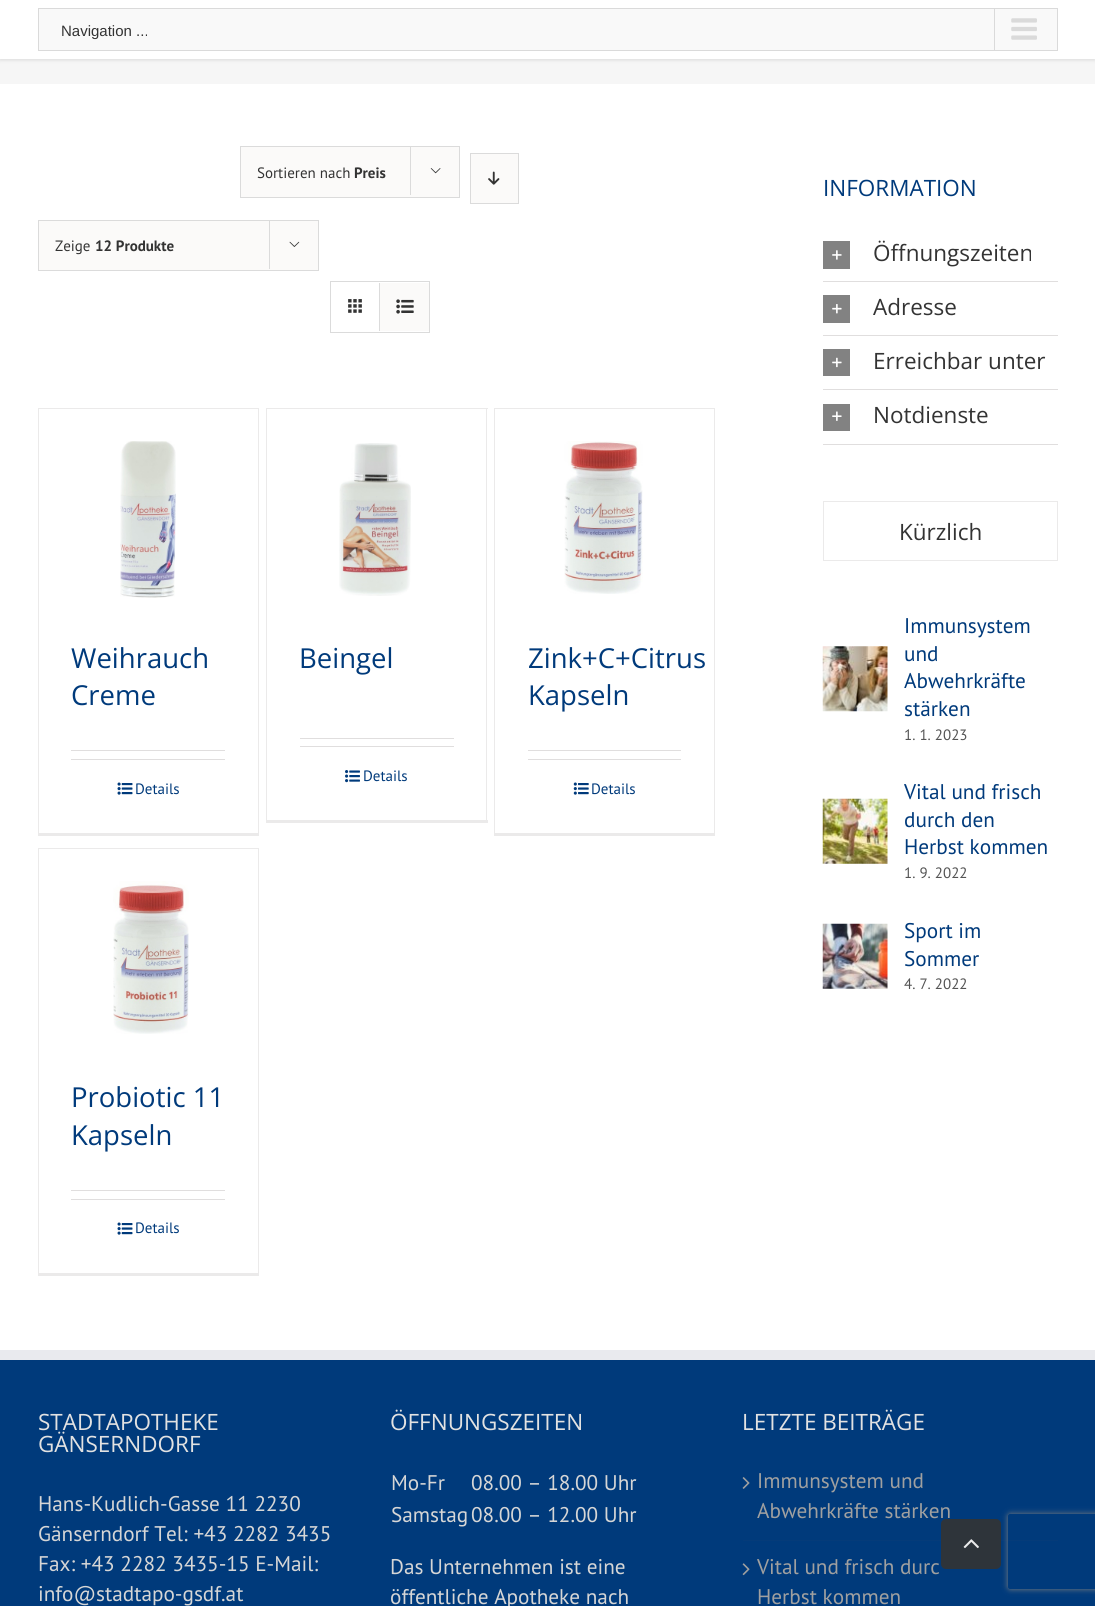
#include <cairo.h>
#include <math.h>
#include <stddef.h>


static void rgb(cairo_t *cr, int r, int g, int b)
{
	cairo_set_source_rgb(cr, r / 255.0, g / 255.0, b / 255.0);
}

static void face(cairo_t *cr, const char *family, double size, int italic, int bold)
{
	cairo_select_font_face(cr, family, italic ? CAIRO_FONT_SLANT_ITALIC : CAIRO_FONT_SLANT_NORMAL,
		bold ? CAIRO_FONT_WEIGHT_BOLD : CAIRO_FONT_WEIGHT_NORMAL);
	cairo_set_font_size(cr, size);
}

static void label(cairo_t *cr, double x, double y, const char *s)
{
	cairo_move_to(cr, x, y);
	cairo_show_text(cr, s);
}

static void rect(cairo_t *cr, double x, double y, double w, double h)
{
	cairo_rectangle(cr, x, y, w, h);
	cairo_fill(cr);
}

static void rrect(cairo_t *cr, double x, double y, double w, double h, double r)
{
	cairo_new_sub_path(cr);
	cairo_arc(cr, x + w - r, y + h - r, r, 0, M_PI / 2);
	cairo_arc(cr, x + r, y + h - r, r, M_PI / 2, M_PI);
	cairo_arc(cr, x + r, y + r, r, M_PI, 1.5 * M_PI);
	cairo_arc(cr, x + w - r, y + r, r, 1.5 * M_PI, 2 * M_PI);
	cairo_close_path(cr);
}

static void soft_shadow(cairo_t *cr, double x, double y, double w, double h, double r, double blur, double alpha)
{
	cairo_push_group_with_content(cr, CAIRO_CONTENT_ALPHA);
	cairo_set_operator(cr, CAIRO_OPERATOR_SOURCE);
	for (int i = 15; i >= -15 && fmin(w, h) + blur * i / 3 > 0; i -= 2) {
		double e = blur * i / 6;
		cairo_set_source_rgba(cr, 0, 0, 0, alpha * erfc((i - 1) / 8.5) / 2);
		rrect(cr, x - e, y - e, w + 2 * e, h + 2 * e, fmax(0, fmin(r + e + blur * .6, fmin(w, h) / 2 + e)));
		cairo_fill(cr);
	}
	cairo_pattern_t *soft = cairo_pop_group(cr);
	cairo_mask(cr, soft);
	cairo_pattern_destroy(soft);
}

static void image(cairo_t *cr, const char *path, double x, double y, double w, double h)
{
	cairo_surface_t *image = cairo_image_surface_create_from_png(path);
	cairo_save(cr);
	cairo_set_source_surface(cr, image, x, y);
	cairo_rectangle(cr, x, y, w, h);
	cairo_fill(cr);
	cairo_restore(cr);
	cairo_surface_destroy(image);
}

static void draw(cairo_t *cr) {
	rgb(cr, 255, 255, 255);
	cairo_paint(cr);
	rgb(cr, 246, 246, 246);
	rect(cr, 0, 0, 1095, 84);
	cairo_save(cr);
	cairo_set_fill_rule(cr, CAIRO_FILL_RULE_EVEN_ODD);
	cairo_new_path(cr);
	cairo_move_to(cr, 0, 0);
	cairo_line_to(cr, 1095, 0);
	cairo_line_to(cr, 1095, 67);
	cairo_line_to(cr, 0, 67);
	cairo_close_path(cr);
	cairo_move_to(cr, 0, 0);
	cairo_line_to(cr, 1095, 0);
	cairo_line_to(cr, 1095, 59);
	cairo_line_to(cr, 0, 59);
	cairo_close_path(cr);
	cairo_clip(cr);
	rgb(cr, 0, 0, 0);
	soft_shadow(cr, 0, 1, 1095, 59, 0, 2, 0.12);
	cairo_restore(cr);
	cairo_set_source_rgba(cr, 1, 1, 1, 0.97);
	rect(cr, 0, 0, 1095, 59);
	rgb(cr, 249, 249, 249);
	cairo_rectangle(cr, 38.5, 8.5, 1019, 42);
	cairo_fill_preserve(cr);
	rgb(cr, 218, 218, 218);
	cairo_set_line_width(cr, 1);
	cairo_stroke(cr);
	face(cr, "Liberation Sans", 15, 0, 0);
	rgb(cr, 51, 51, 51);
	label(cr, 61, 36, "Navigation ...");
	rgb(cr, 218, 218, 218);
	rect(cr, 994, 9, 1, 41);
	image(cr, "image0.png", 1011, 18, 26, 22);
	rgb(cr, 251, 250, 249);
	cairo_rectangle(cr, 240.5, 146.5, 219, 51);
	cairo_fill_preserve(cr);
	rgb(cr, 219, 219, 219);
	cairo_stroke(cr);
	face(cr, "PT Sans", 15, 0, 0);
	rgb(cr, 51, 51, 51);
	label(cr, 257, 178, "Sortieren nach");
	face(cr, "PT Sans", 15, 0, 1);
	label(cr, 354, 178, "Preis");
	rgb(cr, 219, 219, 219);
	rect(cr, 410, 146, 1, 49);
	image(cr, "image1.png", 430, 168, 11, 6);
	rgb(cr, 251, 250, 249);
	cairo_rectangle(cr, 470.5, 153.5, 48, 50);
	cairo_fill_preserve(cr);
	rgb(cr, 219, 219, 219);
	cairo_stroke(cr);
	image(cr, "image2.png", 488, 171, 12, 14);
	rgb(cr, 251, 250, 249);
	cairo_rectangle(cr, 38.5, 220.5, 280, 50);
	cairo_fill_preserve(cr);
	rgb(cr, 219, 219, 219);
	cairo_stroke(cr);
	face(cr, "PT Sans", 15, 0, 0);
	rgb(cr, 51, 51, 51);
	label(cr, 55, 251, "Zeige");
	face(cr, "PT Sans", 15, 0, 1);
	label(cr, 95, 251, "12 Produkte");
	rgb(cr, 219, 219, 219);
	rect(cr, 269, 220, 1, 49);
	image(cr, "image3.png", 289, 241, 11, 6);
	cairo_rectangle(cr, 330.5, 281.5, 99, 51);
	cairo_stroke(cr);
	rect(cr, 379, 283, 1, 48);
	image(cr, "image4.png", 348, 299, 14, 14);
	rgb(cr, 251, 250, 249);
	rect(cr, 380, 283, 49, 48);
	image(cr, "image5.png", 396, 299, 18, 15);
	rgb(cr, 235, 234, 234);
	rect(cr, 38, 408, 221, 1);
	rect(cr, 258, 408, 1, 427);
	rect(cr, 38, 833, 221, 3);
	rect(cr, 38, 408, 1, 427);
	image(cr, "image6.png", 120, 441, 56, 157);
	face(cr, "Open Sans", 27.5, 0, 0);
	rgb(cr, 0, 58, 123);
	label(cr, 71, 668, "Weihrauch");
	label(cr, 71, 705, "Creme");
	rgb(cr, 224, 222, 222);
	rect(cr, 71, 750, 154, 1);
	rect(cr, 71, 759, 154, 1);
	image(cr, "image7.png", 117, 782, 16, 13);
	face(cr, "PT Sans", 15, 0, 0);
	rgb(cr, 0, 58, 123);
	label(cr, 135, 794, "Details");
	rgb(cr, 235, 234, 234);
	rect(cr, 266, 408, 222, 1);
	rect(cr, 486, 408, 1, 415);
	rect(cr, 266, 820, 222, 3);
	rect(cr, 266, 408, 1, 415);
	image(cr, "image8.png", 339, 443, 72, 153);
	face(cr, "Open Sans", 27.5, 0, 0);
	rgb(cr, 0, 58, 123);
	label(cr, 299, 668, "Beingel");
	rgb(cr, 224, 222, 222);
	rect(cr, 300, 738, 154, 1);
	rect(cr, 300, 746, 154, 1);
	image(cr, "image9.png", 345, 770, 15, 13);
	face(cr, "PT Sans", 15, 0, 0);
	rgb(cr, 0, 58, 123);
	label(cr, 363, 781, "Details");
	rgb(cr, 235, 234, 234);
	rect(cr, 494, 408, 221, 1);
	rect(cr, 714, 408, 1, 427);
	rect(cr, 494, 833, 221, 3);
	rect(cr, 494, 408, 1, 427);
	image(cr, "image10.png", 564, 441, 79, 153);
	face(cr, "Open Sans", 27.5, 0, 0);
	rgb(cr, 0, 58, 123);
	label(cr, 528, 668, "Zink+C+Citrus");
	label(cr, 528, 705, "Kapseln");
	rgb(cr, 224, 222, 222);
	rect(cr, 528, 750, 153, 1);
	rect(cr, 528, 759, 153, 1);
	image(cr, "image11.png", 573, 782, 16, 13);
	face(cr, "PT Sans", 15, 0, 0);
	rgb(cr, 0, 58, 123);
	label(cr, 591, 794, "Details");
	rgb(cr, 235, 234, 234);
	rect(cr, 38, 848, 221, 1);
	rect(cr, 258, 848, 1, 427);
	rect(cr, 38, 1273, 221, 3);
	rect(cr, 38, 848, 1, 427);
	image(cr, "image12.png", 113, 881, 76, 153);
	face(cr, "Open Sans", 27.5, 0, 0);
	rgb(cr, 0, 58, 123);
	label(cr, 71, 1107, "Probiotic 11");
	label(cr, 71, 1145, "Kapseln");
	rgb(cr, 224, 222, 222);
	rect(cr, 71, 1190, 154, 1);
	rect(cr, 71, 1199, 154, 1);
	image(cr, "image7.png", 117, 1222, 16, 13);
	face(cr, "PT Sans", 15, 0, 0);
	rgb(cr, 0, 58, 123);
	label(cr, 135, 1233, "Details");
	face(cr, "Open Sans", 22.5, 0, 0);
	label(cr, 823, 196, "INFORMATION");
	rgb(cr, 224, 222, 222);
	rect(cr, 823, 281, 235, 1);
	rgb(cr, 130, 130, 130);
	rect(cr, 823, 241, 27, 28);
	image(cr, "image13.png", 832, 250, 10, 10);
	rgb(cr, 51, 51, 51);
	label(cr, 873, 261, "Öffnungszeiten");
	rgb(cr, 224, 222, 222);
	rect(cr, 823, 335, 235, 1);
	rgb(cr, 130, 130, 130);
	rect(cr, 823, 295, 27, 28);
	image(cr, "image14.png", 832, 304, 10, 10);
	rgb(cr, 51, 51, 51);
	label(cr, 873, 315, "Adresse");
	rgb(cr, 224, 222, 222);
	rect(cr, 823, 389, 235, 1);
	rgb(cr, 130, 130, 130);
	rect(cr, 823, 349, 27, 27);
	image(cr, "image15.png", 832, 357, 10, 11);
	rgb(cr, 51, 51, 51);
	label(cr, 873, 369, "Erreichbar unter");
	rgb(cr, 224, 222, 222);
	rect(cr, 823, 444, 235, 1);
	rgb(cr, 130, 130, 130);
	rect(cr, 823, 404, 27, 27);
	image(cr, "image16.png", 832, 411, 10, 10);
	rgb(cr, 51, 51, 51);
	label(cr, 873, 423, "Notdienste");
	cairo_rectangle(cr, 823.5, 501.5, 234, 59);
	rgb(cr, 235, 234, 234);
	cairo_stroke(cr);
	rgb(cr, 51, 51, 51);
	label(cr, 899, 540, "Kürzlich");
	image(cr, "image17.png", 822, 646, 66, 66);
	face(cr, "PT Sans", 21.25, 0, 0);
	rgb(cr, 0, 58, 123);
	label(cr, 904, 633, "Immunsystem");
	label(cr, 904, 661, "und");
	label(cr, 904, 688, "Abwehrkräfte");
	label(cr, 904, 716, "stärken");
	face(cr, "PT Sans", 15, 0, 0);
	rgb(cr, 84, 84, 84);
	label(cr, 904, 740, "1. 1. 2023");
	image(cr, "image18.png", 822, 798, 66, 66);
	face(cr, "PT Sans", 21.25, 0, 0);
	rgb(cr, 0, 58, 123);
	label(cr, 904, 799, "Vital und frisch");
	label(cr, 904, 827, "durch den");
	label(cr, 904, 854, "Herbst kommen");
	face(cr, "PT Sans", 15, 0, 0);
	rgb(cr, 84, 84, 84);
	label(cr, 904, 878, "1. 9. 2022");
	image(cr, "image19.png", 822, 923, 66, 66);
	face(cr, "PT Sans", 21.25, 0, 0);
	rgb(cr, 0, 58, 123);
	label(cr, 904, 938, "Sport im");
	label(cr, 904, 966, "Sommer");
	face(cr, "PT Sans", 15, 0, 0);
	rgb(cr, 84, 84, 84);
	label(cr, 904, 989, "4. 7. 2022");
	rgb(cr, 0, 58, 123);
	rect(cr, 0, 1360, 1095, 246);
	rgb(cr, 233, 234, 238);
	rect(cr, 0, 1350, 1095, 10);
	face(cr, "Open Sans", 22.5, 0, 0);
	rgb(cr, 226, 226, 226);
	label(cr, 38, 1430, "STADTAPOTHEKE");
	label(cr, 38, 1452, "GÄNSERNDORF");
	face(cr, "PT Sans", 21.25, 0, 0);
	rgb(cr, 214, 214, 214);
	label(cr, 38, 1511, "Hans-Kudlich-Gasse 11 2230");
	label(cr, 38, 1541, "Gänserndorf Tel: +43 2282 3435");
	label(cr, 38, 1571, "Fax: +43 2282 3435-15 E-Mail:");
	label(cr, 38, 1601, "info@stadtapo-gsdf.at");
	face(cr, "Open Sans", 22.5, 0, 0);
	rgb(cr, 226, 226, 226);
	label(cr, 390, 1430, "ÖFFNUNGSZEITEN");
	face(cr, "PT Sans", 21.25, 0, 0);
	rgb(cr, 214, 214, 214);
	label(cr, 391, 1490, "Mo-Fr");
	label(cr, 471, 1490, "08.00 – 18.00 Uhr");
	label(cr, 391, 1522, "Samstag");
	label(cr, 471, 1522, "08.00 – 12.00 Uhr");
	label(cr, 390, 1574, "Das Unternehmen ist eine");
	label(cr, 390, 1604, "öffentliche Apotheke nach");
	face(cr, "Open Sans", 22.5, 0, 0);
	rgb(cr, 226, 226, 226);
	label(cr, 742, 1430, "LETZTE BEITRÄGE");
	rgb(cr, 5, 59, 121);
	rect(cr, 743, 1540, 315, 1);
	image(cr, "image20.png", 742, 1477, 8, 12);
	face(cr, "PT Sans", 21.25, 0, 0);
	rgb(cr, 160, 160, 160);
	label(cr, 757, 1488, "Immunsystem und");
	label(cr, 757, 1518, "Abwehrkräfte stärken");
	image(cr, "image21.png", 742, 1563, 8, 13);
	label(cr, 757, 1574, "Vital und frisch durc");
	label(cr, 757, 1604, "Herbst kommen");
	cairo_save(cr);
	cairo_set_fill_rule(cr, CAIRO_FILL_RULE_EVEN_ODD);
	cairo_new_path(cr);
	cairo_move_to(cr, 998, 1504);
	cairo_line_to(cr, 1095, 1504);
	cairo_line_to(cr, 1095, 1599);
	cairo_line_to(cr, 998, 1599);
	cairo_close_path(cr);
	cairo_move_to(cr, 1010.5, 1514);
	cairo_line_to(cr, 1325.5, 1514);
	cairo_curve_to(cr, 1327, 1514, 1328, 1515, 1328, 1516.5);
	cairo_line_to(cr, 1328, 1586.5);
	cairo_curve_to(cr, 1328, 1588, 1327, 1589, 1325.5, 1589);
	cairo_line_to(cr, 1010.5, 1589);
	cairo_curve_to(cr, 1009, 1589, 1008, 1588, 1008, 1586.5);
	cairo_line_to(cr, 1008, 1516.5);
	cairo_curve_to(cr, 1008, 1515, 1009, 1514, 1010.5, 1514);
	cairo_close_path(cr);
	cairo_clip(cr);
	rgb(cr, 128, 128, 128);
	soft_shadow(cr, 1008, 1514, 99, 75, 2.5, 3, 1);
	cairo_restore(cr);
	cairo_set_source_rgba(cr, 0.2, 0.2, 0.2, 0.9);
	rrect(cr, 941, 1519, 60, 50, 5);
	cairo_fill(cr);
	image(cr, "image22.png", 963, 1539, 16, 10);
}

int main(void) {
	cairo_surface_t *surface = cairo_image_surface_create(CAIRO_FORMAT_RGB24, 1095, 1606);
	cairo_t *cr = cairo_create(surface);
	cairo_font_options_t *options = cairo_font_options_create();
	cairo_font_options_set_hint_metrics(options, CAIRO_HINT_METRICS_OFF);
	cairo_font_options_set_hint_style(options, CAIRO_HINT_STYLE_NONE);
	cairo_set_font_options(cr, options);
	cairo_set_miter_limit(cr, 4);
	draw(cr);
	cairo_surface_write_to_png(surface, "render.png");
	cairo_font_options_destroy(options);
	cairo_destroy(cr);
	cairo_surface_destroy(surface);
	return 0;
}
